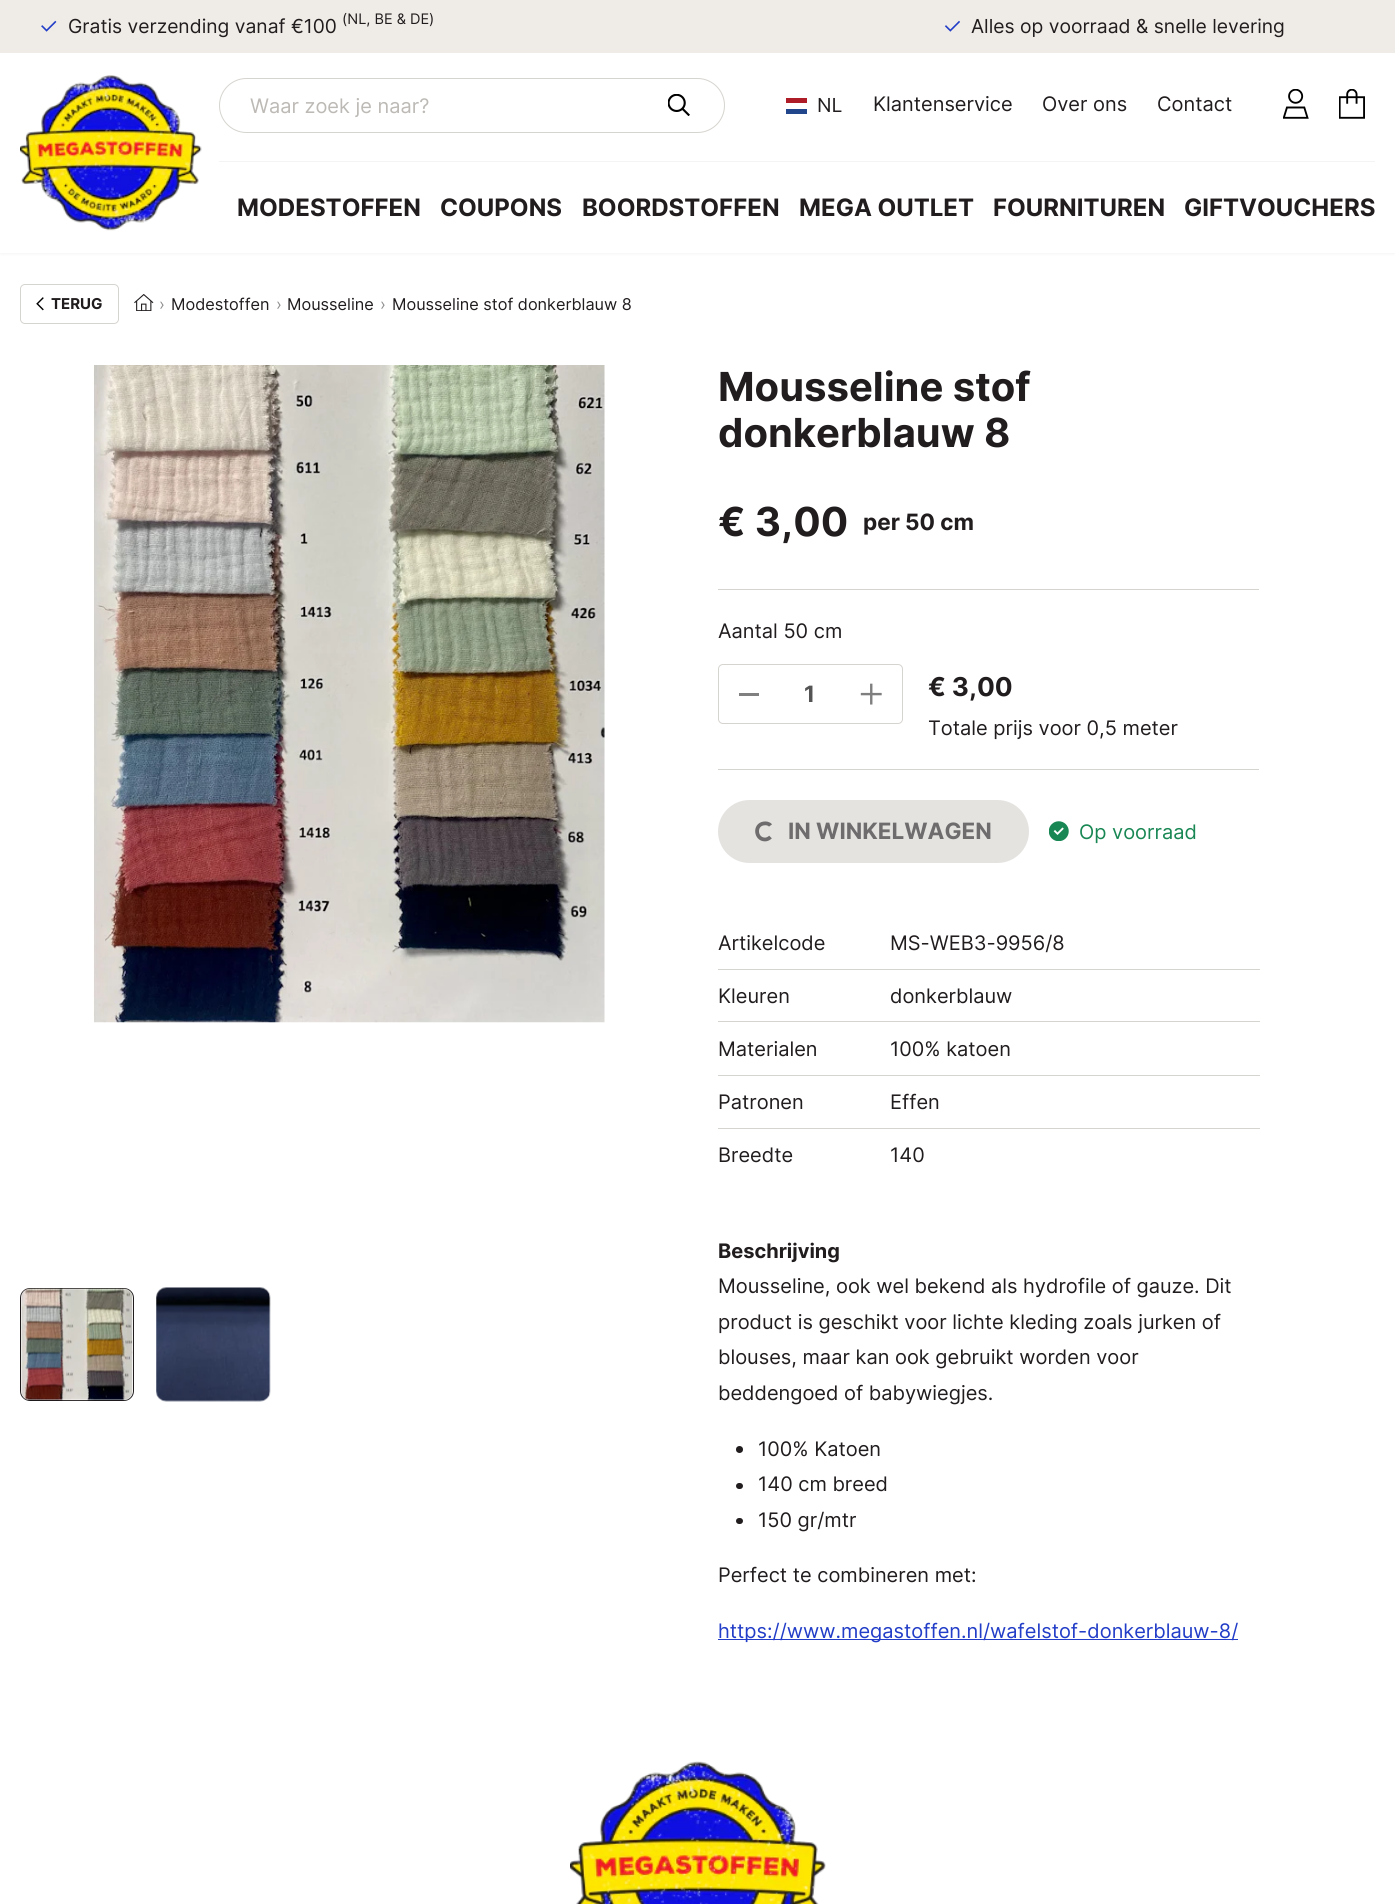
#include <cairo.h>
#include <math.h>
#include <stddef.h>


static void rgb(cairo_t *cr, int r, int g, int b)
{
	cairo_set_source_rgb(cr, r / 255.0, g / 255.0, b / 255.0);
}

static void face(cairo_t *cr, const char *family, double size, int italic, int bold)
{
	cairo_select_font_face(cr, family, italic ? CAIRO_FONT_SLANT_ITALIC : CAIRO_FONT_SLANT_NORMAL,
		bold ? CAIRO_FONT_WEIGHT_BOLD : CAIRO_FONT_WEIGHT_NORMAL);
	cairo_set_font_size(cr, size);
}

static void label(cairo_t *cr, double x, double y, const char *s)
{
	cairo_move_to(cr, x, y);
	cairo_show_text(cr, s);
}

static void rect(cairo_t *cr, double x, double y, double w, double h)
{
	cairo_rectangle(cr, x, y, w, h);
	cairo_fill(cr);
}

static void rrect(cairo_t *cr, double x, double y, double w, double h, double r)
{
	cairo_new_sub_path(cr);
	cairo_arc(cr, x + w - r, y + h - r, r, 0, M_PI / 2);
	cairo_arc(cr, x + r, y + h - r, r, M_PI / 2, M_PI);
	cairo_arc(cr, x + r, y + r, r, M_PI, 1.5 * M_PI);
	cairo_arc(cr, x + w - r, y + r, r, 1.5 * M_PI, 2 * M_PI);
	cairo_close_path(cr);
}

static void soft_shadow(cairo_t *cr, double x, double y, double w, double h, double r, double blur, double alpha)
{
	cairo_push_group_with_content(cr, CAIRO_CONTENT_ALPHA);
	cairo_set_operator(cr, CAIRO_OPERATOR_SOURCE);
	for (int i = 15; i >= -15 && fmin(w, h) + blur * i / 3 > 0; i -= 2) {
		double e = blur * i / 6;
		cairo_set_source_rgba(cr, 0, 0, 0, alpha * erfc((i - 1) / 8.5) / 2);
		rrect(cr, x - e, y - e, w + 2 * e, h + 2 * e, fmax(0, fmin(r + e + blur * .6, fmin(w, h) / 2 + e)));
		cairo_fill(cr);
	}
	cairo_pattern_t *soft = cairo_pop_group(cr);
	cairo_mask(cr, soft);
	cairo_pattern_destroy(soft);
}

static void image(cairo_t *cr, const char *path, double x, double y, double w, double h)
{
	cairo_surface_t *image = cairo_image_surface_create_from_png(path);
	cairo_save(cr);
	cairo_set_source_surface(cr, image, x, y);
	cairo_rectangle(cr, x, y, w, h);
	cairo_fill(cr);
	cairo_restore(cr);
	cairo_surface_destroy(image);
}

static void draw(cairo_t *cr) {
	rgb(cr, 255, 255, 255);
	cairo_paint(cr);
	rgb(cr, 0, 0, 0);
	soft_shadow(cr, 0, 0, 1395, 253, 0, 2, 0.07);
	rgb(cr, 255, 255, 255);
	rect(cr, 0, 53, 1395, 200);
	rgb(cr, 239, 236, 231);
	rect(cr, 0, 0, 1395, 53);
	image(cr, "image0.png", 41, 20, 16, 12);
	face(cr, "Inter", 19.3, 0, 0);
	rgb(cr, 33, 29, 30);
	label(cr, 68, 33, "Gratis verzending vanaf €100");
	face(cr, "Inter", 14.5, 0, 0);
	label(cr, 342, 24, "(NL, BE & DE)");
	image(cr, "image1.png", 944, 20, 16, 12);
	face(cr, "Inter", 19.3, 0, 0);
	label(cr, 971, 33, "Alles op voorraad & snelle levering");
	image(cr, "image2.png", 20, 75, 182, 156);
	rgb(cr, 244, 244, 244);
	rect(cr, 219, 161, 1156, 1);
	rrect(cr, 219.5, 78.5, 505, 54, 27);
	rgb(cr, 214, 212, 207);
	cairo_set_line_width(cr, 1);
	cairo_stroke(cr);
	face(cr, "Inter", 20, 0, 0);
	rgb(cr, 189, 186, 182);
	label(cr, 250, 113, "Waar zoek je naar?");
	image(cr, "image3.png", 668, 94, 22, 22);
	rgb(cr, 33, 70, 139);
	rect(cr, 786, 109, 21, 5);
	rgb(cr, 174, 28, 40);
	rect(cr, 786, 98, 21, 5);
	face(cr, "Inter", 19.3, 0, 0);
	rgb(cr, 33, 29, 30);
	label(cr, 817, 112, "NL");
	face(cr, "Inter", 20, 0, 0);
	label(cr, 873, 111, "Klantenservice");
	label(cr, 1042, 111, "Over ons");
	label(cr, 1157, 111, "Contact");
	image(cr, "image4.png", 1283, 89, 26, 30);
	image(cr, "image5.png", 1339, 89, 26, 30);
	face(cr, "Inter", 24, 0, 1);
	label(cr, 237, 216, "MODESTOFFEN");
	label(cr, 440, 216, "COUPONS");
	label(cr, 582, 216, "BOORDSTOFFEN");
	label(cr, 799, 216, "MEGA OUTLET");
	label(cr, 993, 216, "FOURNITUREN");
	label(cr, 1184, 216, "GIFTVOUCHERS");
	rrect(cr, 20.5, 284.5, 98, 39, 4.5);
	rgb(cr, 214, 212, 207);
	cairo_stroke(cr);
	image(cr, "image6.png", 36, 297, 8, 14);
	face(cr, "Inter", 15, 0, 1);
	rgb(cr, 33, 29, 30);
	label(cr, 51, 309, "TERUG");
	image(cr, "image7.png", 134, 294, 20, 17);
	face(cr, "Inter", 16.25, 0, 0);
	rgb(cr, 144, 142, 143);
	label(cr, 159, 310, "›");
	rgb(cr, 33, 29, 30);
	label(cr, 171, 310, "Modestoffen");
	rgb(cr, 144, 142, 143);
	label(cr, 276, 310, "›");
	rgb(cr, 33, 29, 30);
	label(cr, 287, 310, "Mousseline");
	rgb(cr, 144, 142, 143);
	label(cr, 380, 310, "›");
	rgb(cr, 33, 29, 30);
	label(cr, 392, 310, "Mousseline stof donkerblauw 8");
	image(cr, "image8.png", 93, 365, 512, 658);
	rrect(cr, 20.5, 1288.5, 113, 112, 9.5);
	cairo_stroke(cr);
	image(cr, "image9.png", 21, 1288, 112, 113);
	image(cr, "image10.png", 156, 1287, 115, 115);
	rgb(cr, 214, 212, 207);
	rect(cr, 718, 589, 541, 1);
	face(cr, "Inter", 40, 0, 1);
	rgb(cr, 33, 29, 30);
	label(cr, 718, 401, "Mousseline stof");
	label(cr, 718, 447, "donkerblauw 8");
	label(cr, 718, 536, "€ 3,00");
	face(cr, "Inter", 22.5, 0, 1);
	label(cr, 863, 530, "per 50 cm");
	face(cr, "Inter", 20, 0, 0);
	label(cr, 718, 638, "Aantal 50 cm");
	rgb(cr, 214, 212, 207);
	rect(cr, 718, 769, 541, 1);
	rrect(cr, 718.5, 664.5, 184, 59, 4.5);
	cairo_stroke(cr);
	rgb(cr, 128, 128, 128);
	rect(cr, 739, 693, 20, 3);
	face(cr, "Inter", 22.5, 0, 1);
	rgb(cr, 84, 84, 84);
	label(cr, 804, 702, "1");
	image(cr, "image11.png", 860, 683, 22, 22);
	face(cr, "Inter", 26, 0, 1);
	rgb(cr, 33, 29, 30);
	label(cr, 928, 696, "€ 3,00");
	face(cr, "Inter", 20, 0, 0);
	label(cr, 928, 735, "Totale prijs voor 0,5 meter");
	rgb(cr, 228, 227, 224);
	rrect(cr, 718, 800, 311, 63, 31.5);
	cairo_fill(cr);
	cairo_new_path(cr);
	cairo_move_to(cr, 770.5, 837);
	cairo_curve_to(cr, 769, 838.5, 767, 839.5, 765, 839.5);
	cairo_curve_to(cr, 755.5, 839.5, 754, 825, 763.5, 823.5);
	cairo_curve_to(cr, 766, 823, 769, 823.5, 770.5, 825.5);
	rgb(cr, 111, 108, 109);
	cairo_set_line_width(cr, 3.8);
	cairo_stroke(cr);
	face(cr, "Inter", 22.5, 0, 1);
	label(cr, 788, 839, "IN WINKELWAGEN");
	image(cr, "image12.png", 1049, 821, 20, 20);
	face(cr, "Inter", 20, 0, 0);
	rgb(cr, 25, 135, 84);
	label(cr, 1079, 839, "Op voorraad");
	rgb(cr, 33, 29, 30);
	label(cr, 718, 950, "Artikelcode");
	rgb(cr, 214, 212, 207);
	rect(cr, 718, 969, 542, 1);
	rgb(cr, 33, 29, 30);
	label(cr, 890, 950, "MS-WEB3-9956/8");
	label(cr, 718, 1003, "Kleuren");
	rgb(cr, 214, 212, 207);
	rect(cr, 718, 1021, 542, 1);
	rgb(cr, 33, 29, 30);
	label(cr, 890, 1003, "donkerblauw");
	label(cr, 718, 1056, "Materialen");
	rgb(cr, 214, 212, 207);
	rect(cr, 718, 1075, 542, 1);
	rgb(cr, 33, 29, 30);
	label(cr, 890, 1056, "100% katoen");
	label(cr, 718, 1109, "Patronen");
	rgb(cr, 214, 212, 207);
	rect(cr, 718, 1128, 542, 1);
	rgb(cr, 33, 29, 30);
	label(cr, 890, 1109, "Effen");
	label(cr, 718, 1162, "Breedte");
	label(cr, 890, 1162, "140");
	face(cr, "Inter", 20, 0, 1);
	label(cr, 718, 1258, "Beschrijving");
	face(cr, "Inter", 20, 0, 0);
	label(cr, 718, 1293, "Mousseline, ook wel bekend als hydrofile of gauze. Dit");
	label(cr, 718, 1329, "product is geschikt voor lichte kleding zoals jurken of");
	label(cr, 718, 1364, "blouses, maar kan ook gebruikt worden voor");
	label(cr, 718, 1400, "beddengoed of babywiegjes.");
	cairo_new_path(cr);
	cairo_arc(cr, 739.5, 1449.5, 3.5, 0, 2 * M_PI);
	cairo_fill(cr);
	label(cr, 758, 1456, "100% Katoen");
	rrect(cr, 736, 1483, 7, 6, 3);
	cairo_fill(cr);
	label(cr, 758, 1491, "140 cm breed");
	rrect(cr, 736, 1518, 7, 6, 3);
	cairo_fill(cr);
	label(cr, 758, 1527, "150 gr/mtr");
	label(cr, 718, 1582, "Perfect te combineren met:");
	rgb(cr, 34, 61, 199);
	rect(cr, 718, 1639, 520, 1);
	label(cr, 718, 1638, "https://www.megastoffen.nl/wafelstof-donkerblauw-8/");
	image(cr, "image13.png", 570, 1761, 256, 143);
}

int main(void) {
	cairo_surface_t *surface = cairo_image_surface_create(CAIRO_FORMAT_RGB24, 1395, 1904);
	cairo_t *cr = cairo_create(surface);
	cairo_font_options_t *options = cairo_font_options_create();
	cairo_font_options_set_hint_metrics(options, CAIRO_HINT_METRICS_OFF);
	cairo_font_options_set_hint_style(options, CAIRO_HINT_STYLE_NONE);
	cairo_set_font_options(cr, options);
	cairo_set_miter_limit(cr, 4);
	draw(cr);
	cairo_surface_write_to_png(surface, "render.png");
	cairo_font_options_destroy(options);
	cairo_destroy(cr);
	cairo_surface_destroy(surface);
	return 0;
}
